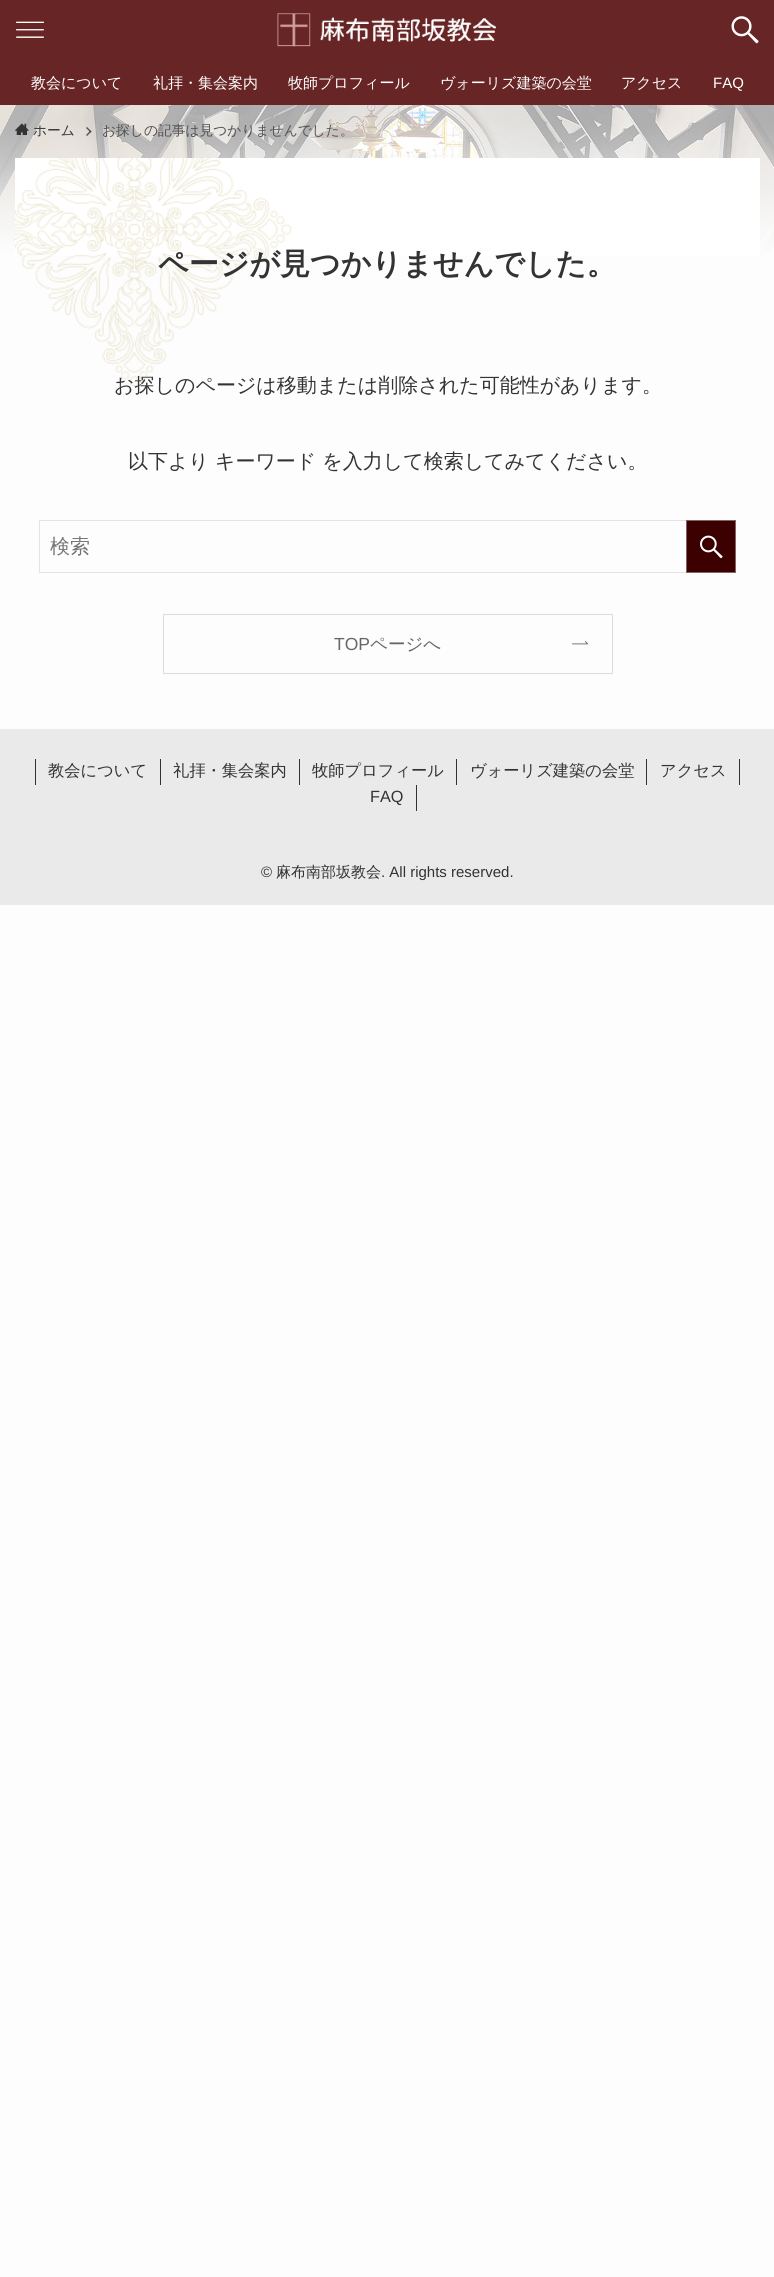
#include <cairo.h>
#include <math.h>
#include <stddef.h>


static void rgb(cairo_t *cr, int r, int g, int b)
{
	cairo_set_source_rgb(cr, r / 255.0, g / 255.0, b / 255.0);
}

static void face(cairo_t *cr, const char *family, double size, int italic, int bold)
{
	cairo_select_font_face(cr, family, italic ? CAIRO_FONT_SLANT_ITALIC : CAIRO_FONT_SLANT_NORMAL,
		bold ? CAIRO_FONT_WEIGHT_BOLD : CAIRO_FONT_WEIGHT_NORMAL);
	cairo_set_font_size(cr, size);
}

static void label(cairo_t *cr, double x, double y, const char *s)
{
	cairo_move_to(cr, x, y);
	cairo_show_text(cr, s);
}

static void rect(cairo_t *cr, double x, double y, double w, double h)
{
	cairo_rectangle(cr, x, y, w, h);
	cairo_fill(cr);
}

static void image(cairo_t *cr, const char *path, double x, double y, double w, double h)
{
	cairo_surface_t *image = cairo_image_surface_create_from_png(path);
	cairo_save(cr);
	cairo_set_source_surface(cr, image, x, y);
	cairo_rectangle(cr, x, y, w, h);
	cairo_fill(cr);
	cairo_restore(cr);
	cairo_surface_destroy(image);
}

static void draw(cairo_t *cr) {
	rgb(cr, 253, 253, 253);
	cairo_paint(cr);
	image(cr, "image0.png", 0, 105, 774, 151);
	rgb(cr, 104, 37, 37);
	rect(cr, 0, 0, 774, 105);
	image(cr, "image1.png", 16, 21, 28, 17);
	image(cr, "image2.png", 277, 13, 219, 34);
	image(cr, "image3.png", 731, 16, 28, 28);
	face(cr, "WenQuanYi Zen Hei Medium", 15, 0, 0);
	rgb(cr, 255, 255, 255);
	label(cr, 31, 88, "教会について");
	label(cr, 153, 88, "礼拝・集会案内");
	label(cr, 288, 88, "牧師プロフィール");
	label(cr, 440, 88, "ヴォーリズ建築の会堂");
	label(cr, 621, 88, "アクセス");
	face(cr, "Liberation Sans", 15, 0, 0);
	label(cr, 713, 88, "FAQ");
	image(cr, "image4.png", 15, 123, 14, 12);
	face(cr, "WenQuanYi Zen Hei Medium", 13.75, 0, 0);
	rgb(cr, 51, 51, 51);
	label(cr, 33, 135, "ホーム");
	cairo_set_source_rgba(cr, 0.2, 0.2, 0.2, 0.8);
	cairo_new_path(cr);
	cairo_move_to(cr, 87, 127);
	cairo_line_to(cr, 91.5, 131.5);
	cairo_line_to(cr, 90.5, 132.5);
	cairo_line_to(cr, 86, 128);
	cairo_close_path(cr);
	cairo_fill(cr);
	cairo_new_path(cr);
	cairo_move_to(cr, 90.5, 130.5);
	cairo_line_to(cr, 91.5, 131.5);
	cairo_line_to(cr, 87, 136);
	cairo_line_to(cr, 86, 135);
	cairo_close_path(cr);
	cairo_fill(cr);
	rgb(cr, 81, 80, 80);
	label(cr, 102, 135, "お探しの記事は見つかりませんでした。");
	rgb(cr, 255, 255, 255);
	rect(cr, 15, 158, 745, 98);
	image(cr, "image5.png", 15, 157, 277, 230);
	face(cr, "WenQuanYi Zen Hei", 30, 0, 1);
	rgb(cr, 51, 51, 51);
	label(cr, 158, 274, "ページが見つかりませんでした。");
	face(cr, "WenQuanYi Zen Hei Medium", 20, 0, 0);
	label(cr, 114, 392, "お探しのページは移動または削除された可能性があります。");
	label(cr, 128, 468, "以下より キーワード を入力して検索してみてください。");
	cairo_rectangle(cr, 39.5, 520.5, 696, 52);
	rgb(cr, 227, 227, 227);
	cairo_set_line_width(cr, 1);
	cairo_stroke(cr);
	rgb(cr, 117, 117, 117);
	label(cr, 50, 553, "検索");
	rgb(cr, 61, 0, 0);
	cairo_rectangle(cr, 686.5, 520.5, 49, 52);
	cairo_fill_preserve(cr);
	rgb(cr, 130, 100, 100);
	cairo_stroke(cr);
	image(cr, "image6.png", 700, 535, 23, 24);
	cairo_rectangle(cr, 163.5, 614.5, 449, 59);
	rgb(cr, 220, 220, 220);
	cairo_stroke(cr);
	face(cr, "Liberation Sans", 17.5, 0, 0);
	rgb(cr, 102, 102, 102);
	label(cr, 334, 650, "TOP");
	face(cr, "WenQuanYi Zen Hei Medium", 17.5, 0, 0);
	label(cr, 370, 650, "ページへ");
	image(cr, "image7.png", 572, 641, 16, 4);
	rgb(cr, 234, 234, 234);
	rect(cr, 0, 729, 774, 176);
	rgb(cr, 51, 51, 51);
	rect(cr, 160, 759, 1, 26);
	rect(cr, 35, 759, 1, 26);
	face(cr, "WenQuanYi Zen Hei Medium", 16.25, 0, 0);
	label(cr, 48, 776, "教会について");
	rect(cr, 299, 759, 1, 26);
	label(cr, 173, 776, "礼拝・集会案内");
	rect(cr, 456, 759, 1, 26);
	label(cr, 312, 776, "牧師プロフィール");
	rect(cr, 646, 759, 1, 26);
	label(cr, 470, 776, "ヴォーリズ建築の会堂");
	rect(cr, 739, 759, 1, 26);
	label(cr, 660, 776, "アクセス");
	rect(cr, 416, 785, 1, 26);
	face(cr, "Liberation Sans", 16.25, 0, 0);
	label(cr, 370, 802, "FAQ");
	face(cr, "Liberation Sans", 15, 0, 0);
	label(cr, 261, 877, "©");
	face(cr, "WenQuanYi Zen Hei Medium", 15, 0, 0);
	label(cr, 276, 877, "麻布南部坂教会");
	face(cr, "Liberation Sans", 15, 0, 0);
	label(cr, 381, 877, ". All rights reserved.");
}

int main(void) {
	cairo_surface_t *surface = cairo_image_surface_create(CAIRO_FORMAT_RGB24, 774, 2277);
	cairo_t *cr = cairo_create(surface);
	cairo_font_options_t *options = cairo_font_options_create();
	cairo_font_options_set_hint_metrics(options, CAIRO_HINT_METRICS_OFF);
	cairo_font_options_set_hint_style(options, CAIRO_HINT_STYLE_NONE);
	cairo_set_font_options(cr, options);
	cairo_set_miter_limit(cr, 4);
	draw(cr);
	cairo_surface_write_to_png(surface, "render.png");
	cairo_font_options_destroy(options);
	cairo_destroy(cr);
	cairo_surface_destroy(surface);
	return 0;
}
